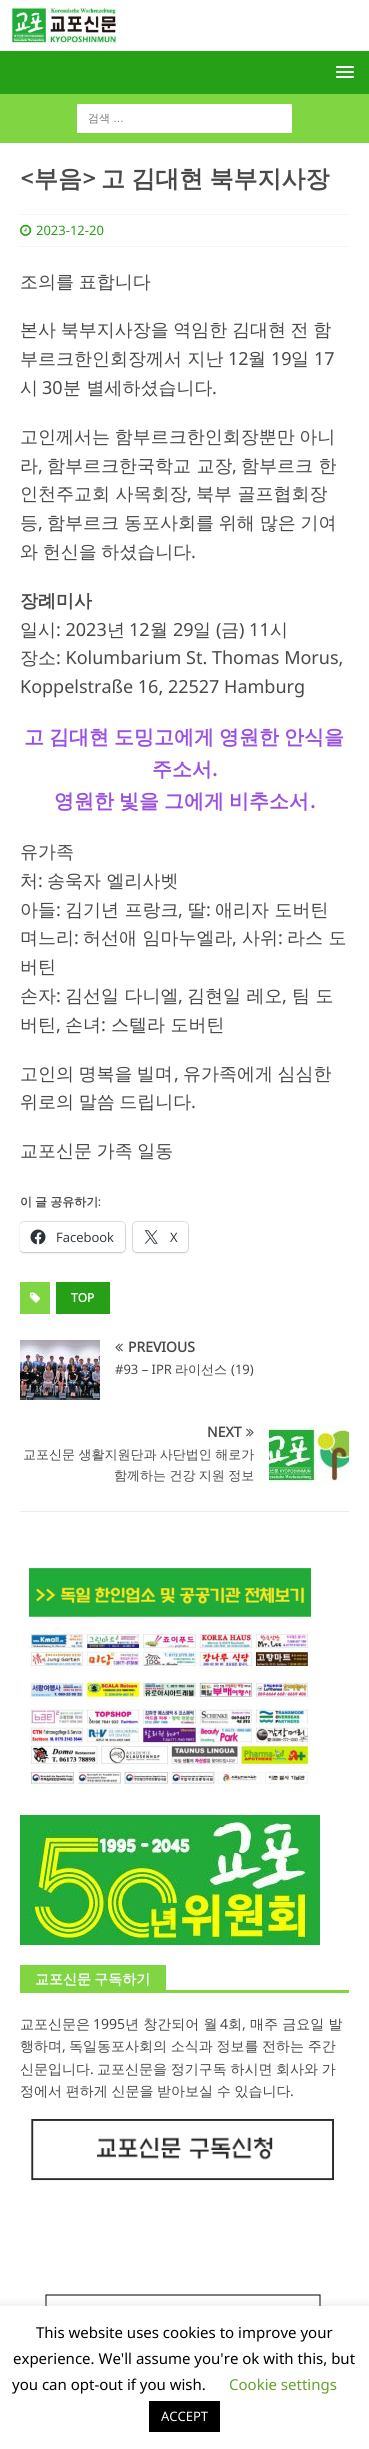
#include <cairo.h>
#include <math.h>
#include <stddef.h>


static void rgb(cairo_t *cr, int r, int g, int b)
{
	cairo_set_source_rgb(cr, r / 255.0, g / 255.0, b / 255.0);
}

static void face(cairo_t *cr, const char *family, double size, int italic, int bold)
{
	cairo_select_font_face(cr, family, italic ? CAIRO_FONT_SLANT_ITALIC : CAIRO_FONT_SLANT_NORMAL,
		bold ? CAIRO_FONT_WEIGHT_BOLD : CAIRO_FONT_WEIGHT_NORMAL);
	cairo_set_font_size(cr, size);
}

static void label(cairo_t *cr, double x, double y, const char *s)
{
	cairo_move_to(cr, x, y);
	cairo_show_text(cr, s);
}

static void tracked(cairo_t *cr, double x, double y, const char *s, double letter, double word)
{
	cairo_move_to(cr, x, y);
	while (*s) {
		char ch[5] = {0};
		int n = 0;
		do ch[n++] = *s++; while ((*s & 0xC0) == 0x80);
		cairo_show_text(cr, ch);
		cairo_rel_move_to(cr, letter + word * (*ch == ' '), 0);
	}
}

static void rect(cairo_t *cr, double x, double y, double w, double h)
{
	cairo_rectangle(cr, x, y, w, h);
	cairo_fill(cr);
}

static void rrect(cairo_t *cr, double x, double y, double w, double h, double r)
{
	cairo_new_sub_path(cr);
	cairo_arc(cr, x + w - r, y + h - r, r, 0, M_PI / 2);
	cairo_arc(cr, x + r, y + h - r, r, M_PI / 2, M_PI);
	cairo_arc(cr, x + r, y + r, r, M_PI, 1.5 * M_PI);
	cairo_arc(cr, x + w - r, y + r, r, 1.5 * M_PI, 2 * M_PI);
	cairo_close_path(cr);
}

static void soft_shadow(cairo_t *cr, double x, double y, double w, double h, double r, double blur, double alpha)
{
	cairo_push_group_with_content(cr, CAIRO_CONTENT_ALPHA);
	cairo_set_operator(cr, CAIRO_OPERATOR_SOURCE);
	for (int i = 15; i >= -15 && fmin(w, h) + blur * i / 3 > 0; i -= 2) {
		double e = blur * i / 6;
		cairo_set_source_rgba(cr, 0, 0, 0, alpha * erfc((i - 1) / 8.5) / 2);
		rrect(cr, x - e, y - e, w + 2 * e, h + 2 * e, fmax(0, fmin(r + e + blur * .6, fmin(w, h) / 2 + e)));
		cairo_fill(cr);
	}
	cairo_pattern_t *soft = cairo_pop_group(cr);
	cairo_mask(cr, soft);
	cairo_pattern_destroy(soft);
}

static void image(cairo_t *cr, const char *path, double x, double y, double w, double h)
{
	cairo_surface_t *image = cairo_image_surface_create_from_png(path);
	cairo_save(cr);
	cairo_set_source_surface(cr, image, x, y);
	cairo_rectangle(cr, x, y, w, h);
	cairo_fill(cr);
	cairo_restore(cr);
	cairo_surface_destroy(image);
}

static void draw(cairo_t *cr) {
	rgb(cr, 38, 160, 22);
	cairo_paint(cr);
	image(cr, "image0.png", 0, 0, 369, 51);
	rgb(cr, 255, 255, 255);
	rrect(cr, 336, 66, 18, 2, 1);
	cairo_fill(cr);
	rrect(cr, 336, 71, 18, 2, 1);
	cairo_fill(cr);
	rrect(cr, 336, 76, 18, 2, 1);
	cairo_fill(cr);
	rgb(cr, 127, 214, 66);
	rect(cr, 0, 94, 369, 49);
	rgb(cr, 255, 255, 255);
	rect(cr, 77, 104, 215, 29);
	face(cr, "WenQuanYi Zen Hei Medium", 11, 0, 0);
	rgb(cr, 117, 117, 117);
	label(cr, 88, 122, "검색");
	face(cr, "Liberation Sans", 11, 0, 0);
	label(cr, 113, 122, "…");
	rgb(cr, 255, 255, 255);
	rect(cr, 0, 143, 369, 2163);
	face(cr, "Montserrat", 24, 0, 1);
	rgb(cr, 73, 73, 73);
	label(cr, 20, 187, "<");
	face(cr, "WenQuanYi Zen Hei", 24, 0, 1);
	label(cr, 34, 187, "부음");
	face(cr, "Montserrat", 24, 0, 1);
	label(cr, 82, 187, ">");
	face(cr, "WenQuanYi Zen Hei", 24, 0, 1);
	tracked(cr, 101, 187, "고 김대현 북부지사장", 0, -1);
	cairo_new_path(cr);
	cairo_move_to(cr, 20, 214.5);
	cairo_line_to(cr, 349, 214.5);
	rgb(cr, 235, 235, 235);
	cairo_set_line_width(cr, 1);
	cairo_set_dash(cr, (double[]){1, 1}, 2, 0);
	cairo_stroke(cr);
	cairo_new_path(cr);
	cairo_move_to(cr, 20, 246.5);
	cairo_line_to(cr, 349, 246.5);
	cairo_stroke(cr);
	image(cr, "image1.png", 20, 224, 12, 12);
	face(cr, "Noto Sans", 13, 0, 0);
	rgb(cr, 38, 160, 22);
	label(cr, 36, 235, "2023-12-20");
	face(cr, "WenQuanYi Zen Hei Medium", 18, 0, 0);
	rgb(cr, 73, 73, 73);
	tracked(cr, 20, 288, "조의를 표합니다", 0, -0.75);
	tracked(cr, 20, 336, "본사 북부지사장을 역임한 김대현 전 함", 0, -0.75);
	label(cr, 20, 365, "부르크한인회장께서 지난");
	face(cr, "Noto Sans", 18, 0, 0);
	label(cr, 228, 365, "12");
	face(cr, "WenQuanYi Zen Hei Medium", 18, 0, 0);
	label(cr, 248, 365, "월");
	face(cr, "Noto Sans", 18, 0, 0);
	label(cr, 271, 365, "19");
	face(cr, "WenQuanYi Zen Hei Medium", 18, 0, 0);
	label(cr, 291, 365, "일");
	face(cr, "Noto Sans", 18, 0, 0);
	label(cr, 314, 365, "17");
	face(cr, "WenQuanYi Zen Hei Medium", 18, 0, 0);
	label(cr, 20, 394, "시");
	face(cr, "Noto Sans", 18, 0, 0);
	label(cr, 42, 394, "30");
	face(cr, "WenQuanYi Zen Hei Medium", 18, 0, 0);
	label(cr, 63, 394, "분 별세하셨습니다");
	face(cr, "Noto Sans", 18, 0, 0);
	label(cr, 212, 394, ".");
	face(cr, "WenQuanYi Zen Hei Medium", 18, 0, 0);
	tracked(cr, 20, 443, "고인께서는 함부르크한인회장뿐만 아니", 0, -0.75);
	label(cr, 20, 472, "라");
	face(cr, "Noto Sans", 18, 0, 0);
	label(cr, 38, 472, ",");
	face(cr, "WenQuanYi Zen Hei Medium", 18, 0, 0);
	label(cr, 47, 472, "함부르크한국학교 교장");
	face(cr, "Noto Sans", 18, 0, 0);
	label(cr, 232, 472, ",");
	face(cr, "WenQuanYi Zen Hei Medium", 18, 0, 0);
	label(cr, 241, 472, "함부르크 한");
	label(cr, 20, 500, "인천주교회 사목회장");
	face(cr, "Noto Sans", 18, 0, 0);
	label(cr, 187, 500, ",");
	face(cr, "WenQuanYi Zen Hei Medium", 18, 0, 0);
	label(cr, 196, 500, "북부 골프협회장");
	label(cr, 20, 529, "등");
	face(cr, "Noto Sans", 18, 0, 0);
	label(cr, 38, 529, ",");
	face(cr, "WenQuanYi Zen Hei Medium", 18, 0, 0);
	tracked(cr, 47, 529, "함부르크 동포사회를 위해 많은 기여", 0, -0.5);
	tracked(cr, 20, 558, "와 헌신을 하셨습니다", 0, -0.75);
	face(cr, "Noto Sans", 18, 0, 0);
	label(cr, 191, 558, ".");
	face(cr, "WenQuanYi Zen Hei", 18, 0, 1);
	label(cr, 20, 607, "장례미사");
	face(cr, "WenQuanYi Zen Hei Medium", 18, 0, 0);
	label(cr, 20, 636, "일시");
	face(cr, "Noto Sans", 18, 0, 0);
	label(cr, 56, 636, ": 2023");
	face(cr, "WenQuanYi Zen Hei Medium", 18, 0, 0);
	label(cr, 107, 636, "년");
	face(cr, "Noto Sans", 18, 0, 0);
	label(cr, 129, 636, "12");
	face(cr, "WenQuanYi Zen Hei Medium", 18, 0, 0);
	label(cr, 150, 636, "월");
	face(cr, "Noto Sans", 18, 0, 0);
	label(cr, 173, 636, "29");
	face(cr, "WenQuanYi Zen Hei Medium", 18, 0, 0);
	label(cr, 193, 636, "일");
	face(cr, "Noto Sans", 18, 0, 0);
	label(cr, 216, 636, "(");
	face(cr, "WenQuanYi Zen Hei Medium", 18, 0, 0);
	label(cr, 221, 636, "금");
	face(cr, "Noto Sans", 18, 0, 0);
	label(cr, 239, 636, ") 11");
	face(cr, "WenQuanYi Zen Hei Medium", 18, 0, 0);
	label(cr, 270, 636, "시");
	label(cr, 20, 664, "장소");
	face(cr, "Noto Sans", 18, 0, 0);
	label(cr, 56, 664, ": Kolumbarium St. Thomas Morus,");
	label(cr, 20, 693, "Koppelstraße 16, 22527 Hamburg");
	face(cr, "WenQuanYi Zen Hei", 20, 0, 1);
	rgb(cr, 155, 81, 224);
	tracked(cr, 24, 744, "고 김대현 도밍고에게 영원한 안식을", 0, -1);
	label(cr, 152, 776, "주소서");
	face(cr, "Noto Sans", 20, 0, 1);
	label(cr, 212, 776, ".");
	face(cr, "WenQuanYi Zen Hei", 20, 0, 1);
	tracked(cr, 54, 808, "영원한 빛을 그에게 비추소서", 0, -1);
	face(cr, "Noto Sans", 20, 0, 1);
	label(cr, 310, 808, ".");
	face(cr, "WenQuanYi Zen Hei Medium", 18, 0, 0);
	rgb(cr, 73, 73, 73);
	label(cr, 20, 858, "유가족");
	label(cr, 20, 887, "처");
	face(cr, "Noto Sans", 18, 0, 0);
	label(cr, 38, 887, ":");
	face(cr, "WenQuanYi Zen Hei Medium", 18, 0, 0);
	label(cr, 47, 887, "송욱자 엘리사벳");
	label(cr, 20, 916, "아들");
	face(cr, "Noto Sans", 18, 0, 0);
	label(cr, 56, 916, ":");
	face(cr, "WenQuanYi Zen Hei Medium", 18, 0, 0);
	label(cr, 65, 916, "김기년 프랑크");
	face(cr, "Noto Sans", 18, 0, 0);
	label(cr, 178, 916, ",");
	face(cr, "WenQuanYi Zen Hei Medium", 18, 0, 0);
	label(cr, 188, 916, "딸");
	face(cr, "Noto Sans", 18, 0, 0);
	label(cr, 206, 916, ":");
	face(cr, "WenQuanYi Zen Hei Medium", 18, 0, 0);
	label(cr, 215, 916, "애리자 도버틴");
	label(cr, 20, 944, "며느리");
	face(cr, "Noto Sans", 18, 0, 0);
	label(cr, 74, 944, ":");
	face(cr, "WenQuanYi Zen Hei Medium", 18, 0, 0);
	label(cr, 83, 944, "허선애 임마누엘라");
	face(cr, "Noto Sans", 18, 0, 0);
	label(cr, 232, 944, ",");
	face(cr, "WenQuanYi Zen Hei Medium", 18, 0, 0);
	label(cr, 242, 944, "사위");
	face(cr, "Noto Sans", 18, 0, 0);
	label(cr, 278, 944, ":");
	face(cr, "WenQuanYi Zen Hei Medium", 18, 0, 0);
	label(cr, 287, 944, "라스 도");
	label(cr, 20, 973, "버틴");
	label(cr, 20, 1002, "손자");
	face(cr, "Noto Sans", 18, 0, 0);
	label(cr, 56, 1002, ":");
	face(cr, "WenQuanYi Zen Hei Medium", 18, 0, 0);
	label(cr, 65, 1002, "김선일 다니엘");
	face(cr, "Noto Sans", 18, 0, 0);
	label(cr, 178, 1002, ",");
	face(cr, "WenQuanYi Zen Hei Medium", 18, 0, 0);
	label(cr, 187, 1002, "김현일 레오");
	face(cr, "Noto Sans", 18, 0, 0);
	label(cr, 282, 1002, ",");
	face(cr, "WenQuanYi Zen Hei Medium", 18, 0, 0);
	label(cr, 292, 1002, "팀 도");
	label(cr, 20, 1031, "버틴");
	face(cr, "Noto Sans", 18, 0, 0);
	label(cr, 56, 1031, ",");
	face(cr, "WenQuanYi Zen Hei Medium", 18, 0, 0);
	label(cr, 65, 1031, "손녀");
	face(cr, "Noto Sans", 18, 0, 0);
	label(cr, 101, 1031, ":");
	face(cr, "WenQuanYi Zen Hei Medium", 18, 0, 0);
	label(cr, 111, 1031, "스텔라 도버틴");
	tracked(cr, 20, 1080, "고인의 명복을 빌며", 0, -1);
	face(cr, "Noto Sans", 18, 0, 0);
	label(cr, 174, 1080, ",");
	face(cr, "WenQuanYi Zen Hei Medium", 18, 0, 0);
	tracked(cr, 183, 1080, "유가족에게 심심한", 0, -1);
	tracked(cr, 20, 1108, "위로의 말씀 드립니다", 0, -0.75);
	face(cr, "Noto Sans", 18, 0, 0);
	label(cr, 191, 1108, ".");
	face(cr, "WenQuanYi Zen Hei Medium", 18, 0, 0);
	tracked(cr, 20, 1157, "교포신문 가족 일동", 0, -0.75);
	face(cr, "WenQuanYi Zen Hei", 12, 0, 1);
	tracked(cr, 20, 1206, "이 글 공유하기", 0, -0.5);
	face(cr, "Montserrat", 12, 0, 1);
	label(cr, 98, 1206, ":");
	cairo_save(cr);
	cairo_rectangle(cr, 20, 163, 329, 1374);
	cairo_clip(cr);
	rrect(cr, 19.5, 1221.5, 106, 31, 4.5);
	rgb(cr, 224, 224, 224);
	cairo_set_dash(cr, NULL, 0, 0);
	cairo_stroke(cr);
	cairo_restore(cr);
	rgb(cr, 0, 0, 0);
	soft_shadow(cr, 20, 1223, 105, 30, 4, 1, 0.12);
	rgb(cr, 255, 255, 255);
	rrect(cr, 20, 1222, 105, 30, 4);
	cairo_fill(cr);
	image(cr, "image2.png", 30, 1229, 16, 16);
	face(cr, "Open Sans", 13, 0, 0);
	rgb(cr, 44, 51, 56);
	label(cr, 56, 1242, "Facebook");
	rrect(cr, 132.5, 1221.5, 56, 31, 4.5);
	rgb(cr, 224, 224, 224);
	cairo_set_dash(cr, NULL, 0, 0);
	cairo_stroke(cr);
	rgb(cr, 0, 0, 0);
	soft_shadow(cr, 133, 1223, 55, 30, 4, 1, 0.12);
	rgb(cr, 255, 255, 255);
	rrect(cr, 133, 1222, 55, 30, 4);
	cairo_fill(cr);
	image(cr, "image3.png", 144, 1230, 14, 14);
	rgb(cr, 44, 51, 56);
	label(cr, 170, 1242, "X");
	rgb(cr, 127, 214, 66);
	rect(cr, 20, 1282, 30, 32);
	image(cr, "image4.png", 30, 1292, 11, 11);
	rgb(cr, 38, 160, 22);
	rect(cr, 56, 1282, 54, 32);
	face(cr, "Noto Sans", 12, 0, 1);
	rgb(cr, 255, 255, 255);
	label(cr, 71, 1302, "TOP");
	rgb(cr, 235, 235, 235);
	rect(cr, 20, 1511, 329, 1);
	image(cr, "image5.png", 20, 1340, 80, 60);
	image(cr, "image6.png", 115, 1343, 8, 9);
	face(cr, "Noto Sans", 14, 0, 1);
	rgb(cr, 73, 73, 73);
	label(cr, 128, 1352, "PREVIOUS");
	face(cr, "Noto Sans", 13, 0, 0);
	label(cr, 115, 1374, "#93 – IPR");
	face(cr, "WenQuanYi Zen Hei Medium", 13, 0, 0);
	label(cr, 175, 1374, "라이선스");
	face(cr, "Noto Sans", 13, 0, 0);
	label(cr, 231, 1374, "(19)");
	face(cr, "Noto Sans", 14, 0, 1);
	label(cr, 207, 1437, "NEXT");
	image(cr, "image7.png", 246, 1428, 8, 9);
	image(cr, "image8.png", 269, 1425, 80, 60);
	face(cr, "WenQuanYi Zen Hei Medium", 13, 0, 0);
	tracked(cr, 23, 1459, "교포신문 생활지원단과 사단법인 해로가", 0, -0.5);
	tracked(cr, 114, 1480, "함께하는 건강 지원 정보", 0, -0.5);
	image(cr, "image9.png", 29, 1568, 282, 217);
	image(cr, "image10.png", 20, 1815, 300, 130);
	rgb(cr, 127, 214, 66);
	rect(cr, 20, 1990, 329, 3);
	rect(cr, 20, 1965, 146, 25);
	face(cr, "WenQuanYi Zen Hei", 14, 0, 1);
	rgb(cr, 255, 255, 255);
	tracked(cr, 35, 1984, "교포신문 구독하기", 0, -1);
	face(cr, "WenQuanYi Zen Hei Medium", 14, 0, 0);
	rgb(cr, 73, 73, 73);
	label(cr, 20, 2029, "교포신문은");
	face(cr, "Noto Sans", 14, 0, 0);
	label(cr, 93, 2029, "1995");
	face(cr, "WenQuanYi Zen Hei Medium", 14, 0, 0);
	label(cr, 125, 2029, "년 창간되어 월");
	face(cr, "Noto Sans", 14, 0, 0);
	label(cr, 220, 2029, "4");
	face(cr, "WenQuanYi Zen Hei Medium", 14, 0, 0);
	label(cr, 228, 2029, "회");
	face(cr, "Noto Sans", 14, 0, 0);
	label(cr, 242, 2029, ",");
	face(cr, "WenQuanYi Zen Hei Medium", 14, 0, 0);
	label(cr, 250, 2029, "매주 금요일 발");
	label(cr, 20, 2051, "행하며");
	face(cr, "Noto Sans", 14, 0, 0);
	label(cr, 62, 2051, ",");
	face(cr, "WenQuanYi Zen Hei Medium", 14, 0, 0);
	tracked(cr, 69, 2051, "독일동포사회의 소식과 정보를 전하는 주간", 0, -0.5);
	label(cr, 20, 2074, "신문입니다");
	face(cr, "Noto Sans", 14, 0, 0);
	label(cr, 90, 2074, ".");
	face(cr, "WenQuanYi Zen Hei Medium", 14, 0, 0);
	tracked(cr, 97, 2074, "교포신문을 정기구독 하시면 회사와 가", 0, -0.5);
	tracked(cr, 20, 2096, "정에서 편하게 신문을 받아보실 수 있습니다", 0, -0.5);
	face(cr, "Noto Sans", 14, 0, 0);
	label(cr, 290, 2096, ".");
	image(cr, "image11.png", 31, 2119, 303, 62);
	image(cr, "image12.png", 45, 2294, 276, 12);
	rgb(cr, 172, 171, 171);
	soft_shadow(cr, 0, 2305, 369, 143, 0, 5, 0.3);
	rgb(cr, 255, 255, 255);
	rect(cr, 0, 2306, 369, 143);
	face(cr, "Noto Sans", 15, 0, 0);
	rgb(cr, 0, 0, 0);
	label(cr, 36, 2338, "This website uses cookies to improve your");
	label(cr, 13, 2364, "experience. We'll assume you're ok with this, but");
	label(cr, 12, 2390, "you can opt-out if you wish.");
	rgb(cr, 98, 163, 41);
	label(cr, 229, 2390, "Cookie settings");
	rgb(cr, 0, 0, 0);
	rect(cr, 149, 2401, 71, 31);
	face(cr, "Noto Sans", 13, 0, 0);
	rgb(cr, 255, 255, 255);
	label(cr, 161, 2421, "ACCEPT");
}

int main(void) {
	cairo_surface_t *surface = cairo_image_surface_create(CAIRO_FORMAT_RGB24, 369, 2449);
	cairo_t *cr = cairo_create(surface);
	cairo_font_options_t *options = cairo_font_options_create();
	cairo_font_options_set_hint_metrics(options, CAIRO_HINT_METRICS_OFF);
	cairo_font_options_set_hint_style(options, CAIRO_HINT_STYLE_NONE);
	cairo_set_font_options(cr, options);
	cairo_set_miter_limit(cr, 4);
	draw(cr);
	cairo_surface_write_to_png(surface, "render.png");
	cairo_font_options_destroy(options);
	cairo_destroy(cr);
	cairo_surface_destroy(surface);
	return 0;
}
